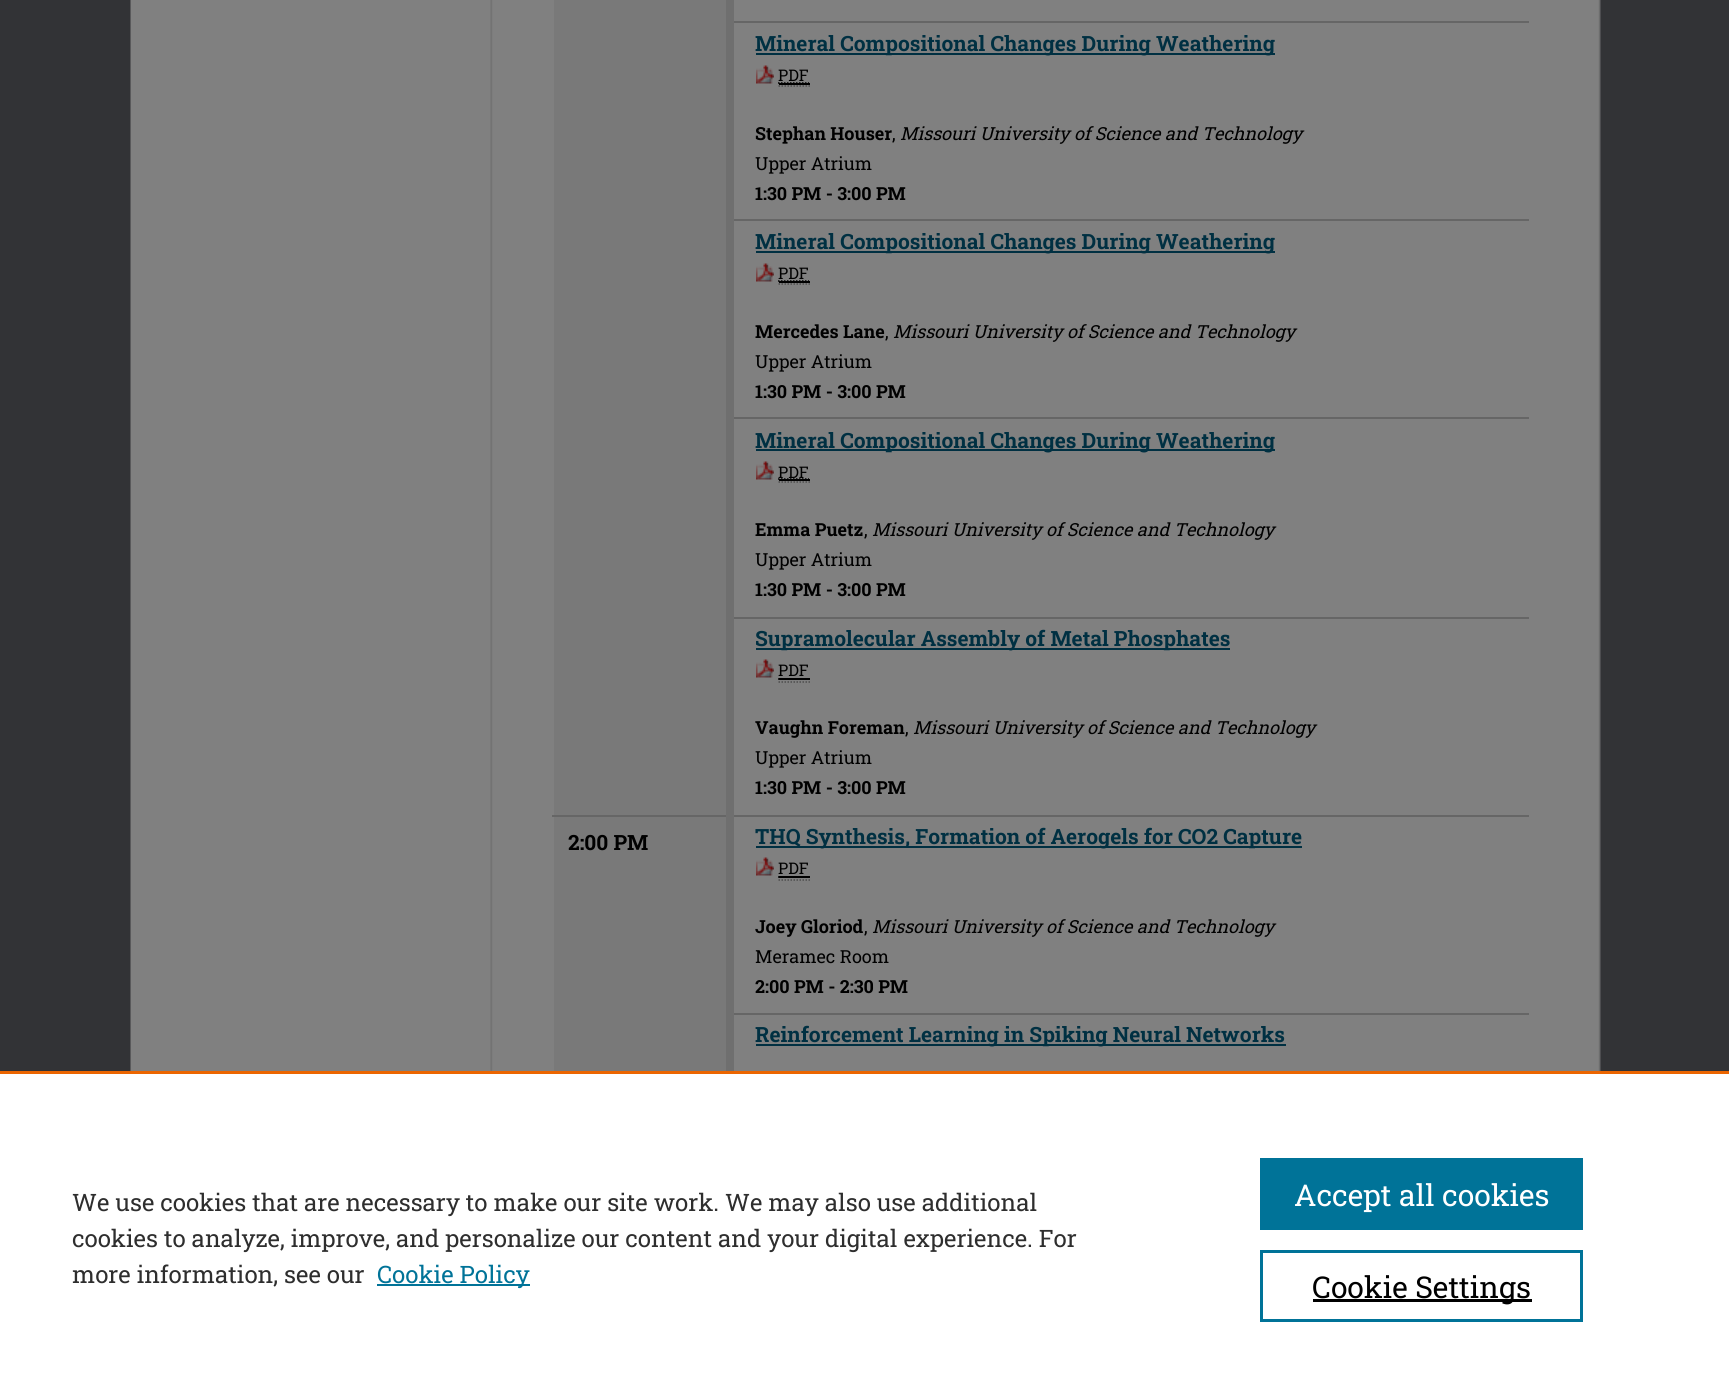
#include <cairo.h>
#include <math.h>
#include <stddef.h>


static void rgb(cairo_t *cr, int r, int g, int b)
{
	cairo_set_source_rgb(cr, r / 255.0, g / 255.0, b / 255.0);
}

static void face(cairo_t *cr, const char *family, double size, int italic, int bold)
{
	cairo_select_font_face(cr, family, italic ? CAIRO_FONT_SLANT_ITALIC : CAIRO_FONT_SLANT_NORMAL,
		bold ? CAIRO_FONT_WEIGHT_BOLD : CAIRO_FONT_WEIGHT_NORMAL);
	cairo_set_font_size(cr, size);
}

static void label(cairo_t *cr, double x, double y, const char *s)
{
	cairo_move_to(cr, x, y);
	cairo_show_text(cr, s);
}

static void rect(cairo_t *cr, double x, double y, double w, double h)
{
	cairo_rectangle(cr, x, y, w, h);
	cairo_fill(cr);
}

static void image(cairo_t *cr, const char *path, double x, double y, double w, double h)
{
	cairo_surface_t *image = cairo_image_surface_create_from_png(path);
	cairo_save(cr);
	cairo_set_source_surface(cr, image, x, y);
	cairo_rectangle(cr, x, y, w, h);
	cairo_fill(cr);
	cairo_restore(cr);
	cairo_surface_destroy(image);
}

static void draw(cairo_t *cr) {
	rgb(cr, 50, 51, 54);
	cairo_paint(cr);
	image(cr, "image0.png", 130, 0, 1471, 1071);
	rgb(cr, 121, 121, 121);
	rect(cr, 554, 0, 172, 815);
	rgb(cr, 102, 102, 102);
	rect(cr, 729, 21, 800, 2);
	rgb(cr, 0, 48, 66);
	rect(cr, 756, 53, 519, 2);
	face(cr, "Roboto Slab", 21, 0, 1);
	label(cr, 755, 51, "Mineral Compositional Changes During Weathering");
	image(cr, "image1.png", 756, 65, 18, 19);
	face(cr, "Roboto Slab", 16, 0, 0);
	rgb(cr, 0, 0, 0);
	label(cr, 778, 81, "PDF");
	cairo_new_path(cr);
	cairo_move_to(cr, 778.5, 86);
	cairo_line_to(cr, 810, 86);
	rgb(cr, 77, 77, 77);
	cairo_set_line_width(cr, 1.5);
	cairo_set_dash(cr, (double[]){1.5, 1.5}, 2, 0);
	cairo_stroke(cr);
	cairo_new_path(cr);
	cairo_move_to(cr, 778, 83);
	cairo_line_to(cr, 809, 83);
	rgb(cr, 0, 0, 0);
	cairo_stroke(cr);
	rect(cr, 779, 83, 31, 2);
	face(cr, "Roboto Slab", 18, 0, 1);
	label(cr, 755, 140, "Stephan Houser");
	face(cr, "Roboto Slab", 18, 0, 0);
	label(cr, 892, 140, ",");
	face(cr, "Roboto Slab", 18, 1, 0);
	label(cr, 900, 140, "Missouri University of Science and Technology");
	face(cr, "Roboto Slab", 18, 0, 0);
	label(cr, 755, 170, "Upper Atrium");
	face(cr, "Roboto Slab", 18, 0, 1);
	label(cr, 755, 200, "1:30 PM - 3:00 PM");
	rgb(cr, 102, 102, 102);
	rect(cr, 729, 219, 800, 2);
	rgb(cr, 0, 48, 66);
	rect(cr, 756, 251, 519, 2);
	face(cr, "Roboto Slab", 21, 0, 1);
	label(cr, 755, 249, "Mineral Compositional Changes During Weathering");
	image(cr, "image1.png", 756, 263, 18, 19);
	face(cr, "Roboto Slab", 16, 0, 0);
	rgb(cr, 0, 0, 0);
	label(cr, 778, 279, "PDF");
	cairo_new_path(cr);
	cairo_move_to(cr, 778.5, 284);
	cairo_line_to(cr, 810, 284);
	rgb(cr, 77, 77, 77);
	cairo_stroke(cr);
	cairo_new_path(cr);
	cairo_move_to(cr, 778, 281);
	cairo_line_to(cr, 809, 281);
	rgb(cr, 0, 0, 0);
	cairo_stroke(cr);
	rect(cr, 779, 281, 31, 2);
	face(cr, "Roboto Slab", 18, 0, 1);
	label(cr, 755, 338, "Mercedes Lane");
	face(cr, "Roboto Slab", 18, 0, 0);
	label(cr, 885, 338, ",");
	face(cr, "Roboto Slab", 18, 1, 0);
	label(cr, 893, 338, "Missouri University of Science and Technology");
	face(cr, "Roboto Slab", 18, 0, 0);
	label(cr, 755, 368, "Upper Atrium");
	face(cr, "Roboto Slab", 18, 0, 1);
	label(cr, 755, 398, "1:30 PM - 3:00 PM");
	rgb(cr, 102, 102, 102);
	rect(cr, 729, 417, 800, 2);
	rgb(cr, 0, 48, 66);
	rect(cr, 756, 449, 519, 2);
	face(cr, "Roboto Slab", 21, 0, 1);
	label(cr, 755, 448, "Mineral Compositional Changes During Weathering");
	image(cr, "image1.png", 756, 461, 18, 19);
	face(cr, "Roboto Slab", 16, 0, 0);
	rgb(cr, 0, 0, 0);
	label(cr, 778, 478, "PDF");
	cairo_new_path(cr);
	cairo_move_to(cr, 778.5, 482);
	cairo_line_to(cr, 810, 482);
	rgb(cr, 77, 77, 77);
	cairo_stroke(cr);
	cairo_new_path(cr);
	cairo_move_to(cr, 778, 479);
	cairo_line_to(cr, 809, 479);
	rgb(cr, 0, 0, 0);
	cairo_stroke(cr);
	rect(cr, 779, 479, 31, 2);
	face(cr, "Roboto Slab", 18, 0, 1);
	label(cr, 755, 536, "Emma Puetz");
	face(cr, "Roboto Slab", 18, 0, 0);
	label(cr, 864, 536, ",");
	face(cr, "Roboto Slab", 18, 1, 0);
	label(cr, 872, 536, "Missouri University of Science and Technology");
	face(cr, "Roboto Slab", 18, 0, 0);
	label(cr, 755, 566, "Upper Atrium");
	face(cr, "Roboto Slab", 18, 0, 1);
	label(cr, 755, 596, "1:30 PM - 3:00 PM");
	rgb(cr, 102, 102, 102);
	rect(cr, 729, 617, 800, 2);
	rgb(cr, 0, 48, 66);
	rect(cr, 756, 648, 474, 2);
	face(cr, "Roboto Slab", 21, 0, 1);
	label(cr, 755, 646, "Supramolecular Assembly of Metal Phosphates");
	image(cr, "image1.png", 756, 659, 18, 19);
	face(cr, "Roboto Slab", 16, 0, 0);
	rgb(cr, 0, 0, 0);
	label(cr, 778, 676, "PDF");
	cairo_new_path(cr);
	cairo_move_to(cr, 778.5, 682);
	cairo_line_to(cr, 810, 682);
	rgb(cr, 77, 77, 77);
	cairo_stroke(cr);
	cairo_new_path(cr);
	cairo_move_to(cr, 778, 679);
	cairo_line_to(cr, 809, 679);
	rgb(cr, 0, 0, 0);
	cairo_stroke(cr);
	rect(cr, 779, 678, 31, 2);
	face(cr, "Roboto Slab", 18, 0, 1);
	label(cr, 755, 734, "Vaughn Foreman");
	face(cr, "Roboto Slab", 18, 0, 0);
	label(cr, 905, 734, ",");
	face(cr, "Roboto Slab", 18, 1, 0);
	label(cr, 913, 734, "Missouri University of Science and Technology");
	face(cr, "Roboto Slab", 18, 0, 0);
	label(cr, 755, 764, "Upper Atrium");
	face(cr, "Roboto Slab", 18, 0, 1);
	label(cr, 755, 794, "1:30 PM - 3:00 PM");
	rgb(cr, 102, 102, 102);
	rect(cr, 552, 815, 977, 2);
	rgb(cr, 121, 121, 121);
	rect(cr, 554, 817, 172, 254);
	face(cr, "Roboto Slab", 21, 0, 1);
	rgb(cr, 0, 0, 0);
	label(cr, 568, 850, "2:00 PM");
	rgb(cr, 0, 48, 66);
	rect(cr, 756, 846, 546, 2);
	label(cr, 755, 844, "THQ Synthesis, Formation of Aerogels for CO2 Capture");
	image(cr, "image1.png", 756, 857, 18, 19);
	face(cr, "Roboto Slab", 16, 0, 0);
	rgb(cr, 0, 0, 0);
	label(cr, 778, 874, "PDF");
	cairo_new_path(cr);
	cairo_move_to(cr, 778.5, 880);
	cairo_line_to(cr, 810, 880);
	rgb(cr, 77, 77, 77);
	cairo_stroke(cr);
	cairo_new_path(cr);
	cairo_move_to(cr, 778, 877);
	cairo_line_to(cr, 809, 877);
	rgb(cr, 0, 0, 0);
	cairo_stroke(cr);
	rect(cr, 779, 876, 31, 2);
	face(cr, "Roboto Slab", 18, 0, 1);
	label(cr, 755, 933, "Joey Gloriod");
	face(cr, "Roboto Slab", 18, 0, 0);
	label(cr, 864, 933, ",");
	face(cr, "Roboto Slab", 18, 1, 0);
	label(cr, 872, 933, "Missouri University of Science and Technology");
	face(cr, "Roboto Slab", 18, 0, 0);
	label(cr, 755, 963, "Meramec Room");
	face(cr, "Roboto Slab", 18, 0, 1);
	label(cr, 755, 993, "2:00 PM - 2:30 PM");
	rgb(cr, 102, 102, 102);
	rect(cr, 729, 1013, 800, 2);
	rgb(cr, 111, 111, 111);
	rect(cr, 726, 0, 8, 1071);
	rgb(cr, 0, 48, 66);
	rect(cr, 756, 1044, 530, 2);
	face(cr, "Roboto Slab", 21, 0, 1);
	label(cr, 755, 1042, "Reinforcement Learning in Spiking Neural Networks");
	rgb(cr, 255, 255, 255);
	rect(cr, 0, 1074, 1729, 326);
	rgb(cr, 235, 101, 0);
	rect(cr, 0, 1071, 1729, 3);
	face(cr, "Roboto Slab", 24, 0, 0);
	rgb(cr, 46, 46, 46);
	label(cr, 72, 1211, "We use cookies that are necessary to make our site work. We may also use additional");
	label(cr, 72, 1247, "cookies to analyze, improve, and personalize our content and your digital experience. For");
	label(cr, 72, 1283, "more information, see our");
	rgb(cr, 0, 115, 152);
	rect(cr, 377, 1284, 153, 2);
	label(cr, 377, 1283, "Cookie Policy");
	rect(cr, 1260, 1158, 323, 72);
	face(cr, "Roboto Slab", 30, 0, 0);
	rgb(cr, 255, 255, 255);
	label(cr, 1294, 1206, "Accept all cookies");
	cairo_rectangle(cr, 1261.5, 1251.5, 320, 69);
	rgb(cr, 0, 115, 152);
	cairo_set_line_width(cr, 3);
	cairo_set_dash(cr, NULL, 0, 0);
	cairo_stroke(cr);
	rgb(cr, 0, 0, 0);
	rect(cr, 1313, 1299, 219, 3);
	label(cr, 1312, 1298, "Cookie Settings");
}

int main(void) {
	cairo_surface_t *surface = cairo_image_surface_create(CAIRO_FORMAT_RGB24, 1729, 1400);
	cairo_t *cr = cairo_create(surface);
	cairo_font_options_t *options = cairo_font_options_create();
	cairo_font_options_set_hint_metrics(options, CAIRO_HINT_METRICS_OFF);
	cairo_font_options_set_hint_style(options, CAIRO_HINT_STYLE_NONE);
	cairo_set_font_options(cr, options);
	cairo_set_miter_limit(cr, 4);
	draw(cr);
	cairo_surface_write_to_png(surface, "render.png");
	cairo_font_options_destroy(options);
	cairo_destroy(cr);
	cairo_surface_destroy(surface);
	return 0;
}
